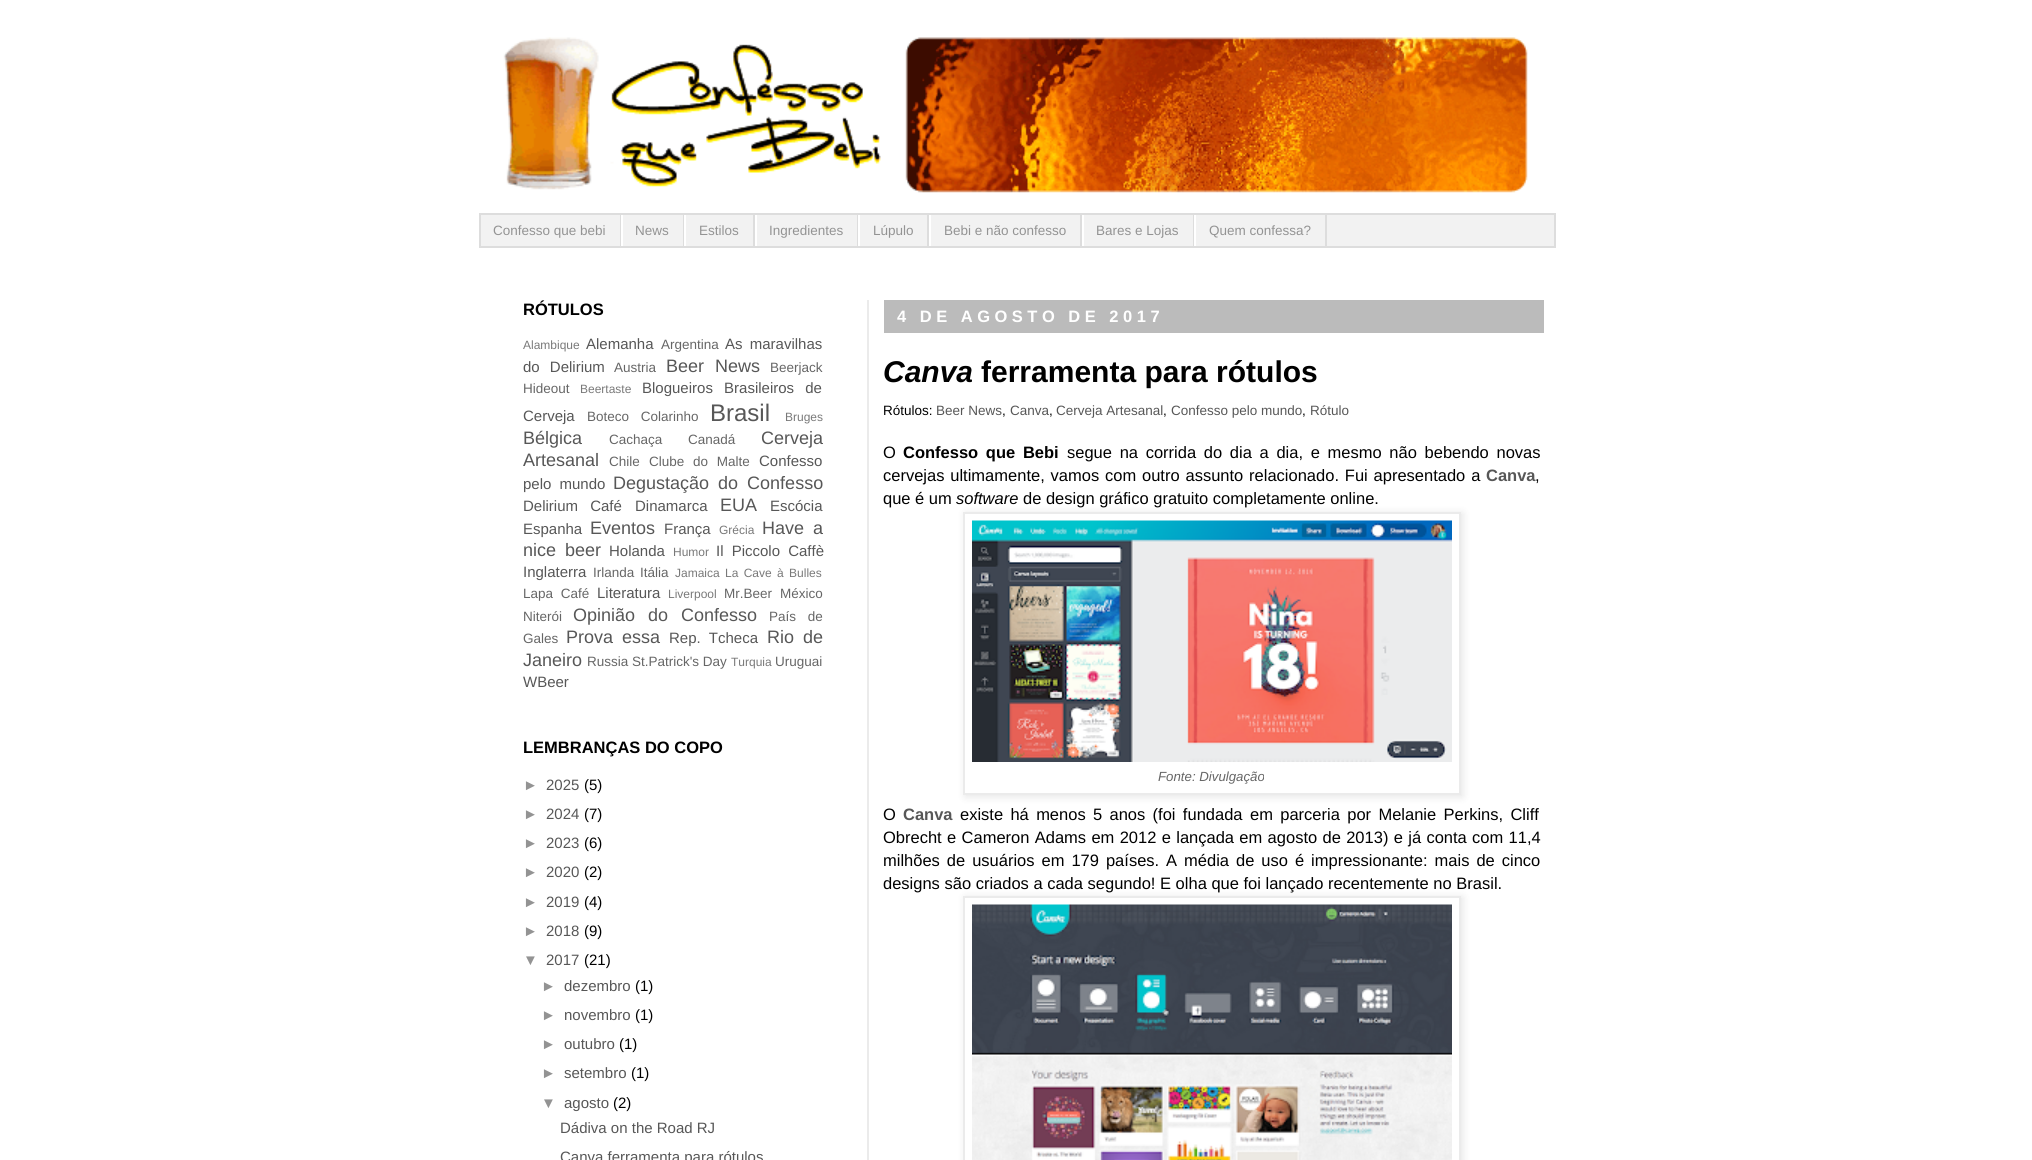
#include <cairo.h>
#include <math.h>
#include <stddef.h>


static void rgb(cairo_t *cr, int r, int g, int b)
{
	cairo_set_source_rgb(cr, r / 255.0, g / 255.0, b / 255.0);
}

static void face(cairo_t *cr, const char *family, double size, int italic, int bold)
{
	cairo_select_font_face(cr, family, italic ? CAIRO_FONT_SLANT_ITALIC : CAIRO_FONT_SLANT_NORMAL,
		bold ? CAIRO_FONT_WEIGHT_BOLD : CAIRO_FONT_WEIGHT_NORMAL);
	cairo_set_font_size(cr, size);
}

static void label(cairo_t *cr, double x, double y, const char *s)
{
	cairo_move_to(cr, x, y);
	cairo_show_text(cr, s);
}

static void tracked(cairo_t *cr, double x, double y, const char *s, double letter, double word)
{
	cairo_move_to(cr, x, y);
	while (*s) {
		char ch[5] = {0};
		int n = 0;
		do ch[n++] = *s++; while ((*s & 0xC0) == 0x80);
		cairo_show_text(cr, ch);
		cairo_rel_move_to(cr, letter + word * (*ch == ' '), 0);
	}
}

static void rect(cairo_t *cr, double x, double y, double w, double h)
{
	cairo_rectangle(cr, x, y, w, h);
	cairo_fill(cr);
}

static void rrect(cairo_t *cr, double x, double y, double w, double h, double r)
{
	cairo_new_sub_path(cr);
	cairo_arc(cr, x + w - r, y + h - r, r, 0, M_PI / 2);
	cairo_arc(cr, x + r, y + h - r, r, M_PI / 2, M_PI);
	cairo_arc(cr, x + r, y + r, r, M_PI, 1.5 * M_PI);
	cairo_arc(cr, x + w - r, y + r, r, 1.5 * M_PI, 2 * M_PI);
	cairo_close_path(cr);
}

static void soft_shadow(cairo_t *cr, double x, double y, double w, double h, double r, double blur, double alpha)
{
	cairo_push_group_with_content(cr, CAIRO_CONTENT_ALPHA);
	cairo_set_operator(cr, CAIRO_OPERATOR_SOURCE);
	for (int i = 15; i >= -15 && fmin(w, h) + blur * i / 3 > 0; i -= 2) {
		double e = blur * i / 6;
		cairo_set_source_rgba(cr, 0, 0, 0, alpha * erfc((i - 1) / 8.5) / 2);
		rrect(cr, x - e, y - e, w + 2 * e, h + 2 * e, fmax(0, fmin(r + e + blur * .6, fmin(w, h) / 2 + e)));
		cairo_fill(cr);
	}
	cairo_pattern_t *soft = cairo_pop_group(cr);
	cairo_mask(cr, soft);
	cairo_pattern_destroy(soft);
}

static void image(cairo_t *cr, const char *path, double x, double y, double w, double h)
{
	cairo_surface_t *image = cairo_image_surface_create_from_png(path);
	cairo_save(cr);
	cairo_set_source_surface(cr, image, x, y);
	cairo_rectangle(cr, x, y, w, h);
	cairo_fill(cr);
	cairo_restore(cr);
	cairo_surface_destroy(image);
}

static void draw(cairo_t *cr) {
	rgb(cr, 255, 255, 255);
	cairo_paint(cr);
	image(cr, "image0.png", 503, 37, 1025, 156);
	rgb(cr, 242, 242, 242);
	cairo_rectangle(cr, 480, 214, 1075, 33);
	cairo_fill_preserve(cr);
	rgb(cr, 221, 221, 221);
	cairo_stroke(cr);
	rect(cr, 620, 215, 1, 31);
	face(cr, "Liberation Sans", 13.5, 0, 0);
	rgb(cr, 147, 147, 147);
	label(cr, 493, 235, "Confesso que bebi");
	rgb(cr, 221, 221, 221);
	rect(cr, 683, 215, 1, 31);
	rgb(cr, 255, 255, 255);
	rect(cr, 621, 215, 2, 31);
	rgb(cr, 147, 147, 147);
	label(cr, 635, 235, "News");
	rgb(cr, 221, 221, 221);
	rect(cr, 753, 215, 2, 31);
	rgb(cr, 255, 255, 255);
	rect(cr, 684, 215, 2, 31);
	rgb(cr, 147, 147, 147);
	label(cr, 699, 235, "Estilos");
	rgb(cr, 221, 221, 221);
	rect(cr, 857, 215, 1, 31);
	rgb(cr, 255, 255, 255);
	rect(cr, 755, 215, 2, 31);
	rgb(cr, 147, 147, 147);
	label(cr, 769, 235, "Ingredientes");
	rgb(cr, 221, 221, 221);
	rect(cr, 927, 215, 2, 31);
	rgb(cr, 255, 255, 255);
	rect(cr, 858, 215, 2, 31);
	rgb(cr, 147, 147, 147);
	label(cr, 873, 235, "Lúpulo");
	rgb(cr, 221, 221, 221);
	rect(cr, 1080, 215, 2, 31);
	rgb(cr, 255, 255, 255);
	rect(cr, 929, 215, 2, 31);
	rgb(cr, 147, 147, 147);
	label(cr, 944, 235, "Bebi e não confesso");
	rgb(cr, 221, 221, 221);
	rect(cr, 1193, 215, 1, 31);
	rgb(cr, 255, 255, 255);
	rect(cr, 1082, 215, 2, 31);
	rgb(cr, 147, 147, 147);
	label(cr, 1096, 235, "Bares e Lojas");
	rgb(cr, 221, 221, 221);
	rect(cr, 1325, 215, 2, 31);
	rgb(cr, 255, 255, 255);
	rect(cr, 1194, 215, 2, 31);
	rgb(cr, 147, 147, 147);
	label(cr, 1209, 235, "Quem confessa?");
	face(cr, "Liberation Sans", 16.5, 0, 1);
	rgb(cr, 0, 0, 0);
	label(cr, 523, 315, "RÓTULOS");
	face(cr, "Liberation Sans", 12, 0, 0);
	rgb(cr, 121, 121, 121);
	label(cr, 523, 349, "Alambique");
	face(cr, "Liberation Sans", 15, 0, 0);
	rgb(cr, 87, 87, 87);
	label(cr, 586, 349, "Alemanha");
	face(cr, "Liberation Sans", 13.5, 0, 0);
	rgb(cr, 102, 102, 102);
	label(cr, 661, 349, "Argentina");
	face(cr, "Liberation Sans", 15, 0, 0);
	rgb(cr, 87, 87, 87);
	tracked(cr, 725, 349, "As maravilhas", 0, 3.1);
	tracked(cr, 523, 372, "do Delirium", 0, 6);
	face(cr, "Liberation Sans", 13.5, 0, 0);
	rgb(cr, 102, 102, 102);
	label(cr, 614, 372, "Austria");
	face(cr, "Liberation Sans", 18, 0, 0);
	rgb(cr, 87, 87, 87);
	tracked(cr, 666, 372, "Beer News", 0, 6);
	face(cr, "Liberation Sans", 13.5, 0, 0);
	rgb(cr, 102, 102, 102);
	label(cr, 770, 372, "Beerjack");
	label(cr, 523, 393, "Hideout");
	face(cr, "Liberation Sans", 12, 0, 0);
	rgb(cr, 121, 121, 121);
	label(cr, 580, 393, "Beertaste");
	face(cr, "Liberation Sans", 15, 0, 0);
	rgb(cr, 87, 87, 87);
	tracked(cr, 642, 393, "Blogueiros Brasileiros de", 0, 7);
	label(cr, 523, 421, "Cerveja");
	face(cr, "Liberation Sans", 13.5, 0, 0);
	rgb(cr, 102, 102, 102);
	tracked(cr, 587, 421, "Boteco Colarinho", 0, 8);
	face(cr, "Liberation Sans", 24, 0, 0);
	rgb(cr, 87, 87, 87);
	label(cr, 710, 421, "Brasil");
	face(cr, "Liberation Sans", 12, 0, 0);
	rgb(cr, 121, 121, 121);
	label(cr, 785, 421, "Bruges");
	face(cr, "Liberation Sans", 18, 0, 0);
	rgb(cr, 87, 87, 87);
	label(cr, 523, 444, "Bélgica");
	face(cr, "Liberation Sans", 13.5, 0, 0);
	rgb(cr, 102, 102, 102);
	label(cr, 609, 444, "Cachaça");
	label(cr, 688, 444, "Canadá");
	face(cr, "Liberation Sans", 18, 0, 0);
	rgb(cr, 87, 87, 87);
	label(cr, 761, 444, "Cerveja");
	label(cr, 523, 466, "Artesanal");
	face(cr, "Liberation Sans", 13.5, 0, 0);
	rgb(cr, 102, 102, 102);
	label(cr, 609, 466, "Chile");
	tracked(cr, 649, 466, "Clube do Malte", 0, 5);
	face(cr, "Liberation Sans", 15, 0, 0);
	rgb(cr, 87, 87, 87);
	label(cr, 759, 466, "Confesso");
	tracked(cr, 523, 489, "pelo mundo", 0, 4);
	face(cr, "Liberation Sans", 18, 0, 0);
	tracked(cr, 613, 489, "Degustação do Confesso", 0, 4);
	face(cr, "Liberation Sans", 15, 0, 0);
	tracked(cr, 523, 511, "Delirium Café", 0, 8);
	label(cr, 635, 511, "Dinamarca");
	face(cr, "Liberation Sans", 18, 0, 0);
	label(cr, 720, 511, "EUA");
	face(cr, "Liberation Sans", 15, 0, 0);
	label(cr, 770, 511, "Escócia");
	label(cr, 523, 534, "Espanha");
	face(cr, "Liberation Sans", 18, 0, 0);
	label(cr, 590, 534, "Eventos");
	face(cr, "Liberation Sans", 15, 0, 0);
	label(cr, 664, 534, "França");
	face(cr, "Liberation Sans", 12, 0, 0);
	rgb(cr, 121, 121, 121);
	label(cr, 719, 534, "Grécia");
	face(cr, "Liberation Sans", 18, 0, 0);
	rgb(cr, 87, 87, 87);
	tracked(cr, 762, 534, "Have a", 0, 4);
	tracked(cr, 523, 556, "nice beer", 0, 4);
	face(cr, "Liberation Sans", 15, 0, 0);
	label(cr, 609, 556, "Holanda");
	face(cr, "Liberation Sans", 12, 0, 0);
	rgb(cr, 121, 121, 121);
	label(cr, 673, 556, "Humor");
	face(cr, "Liberation Sans", 15, 0, 0);
	rgb(cr, 87, 87, 87);
	tracked(cr, 716, 556, "Il Piccolo Caffè", 0, 4);
	label(cr, 523, 577, "Inglaterra");
	face(cr, "Liberation Sans", 13.5, 0, 0);
	rgb(cr, 102, 102, 102);
	label(cr, 593, 577, "Irlanda");
	label(cr, 640, 577, "Itália");
	face(cr, "Liberation Sans", 12, 0, 0);
	rgb(cr, 121, 121, 121);
	label(cr, 675, 577, "Jamaica");
	tracked(cr, 725, 577, "La Cave à Bulles", 0, 2);
	face(cr, "Liberation Sans", 13.5, 0, 0);
	rgb(cr, 102, 102, 102);
	tracked(cr, 523, 598, "Lapa Café", 0, 4);
	face(cr, "Liberation Sans", 15, 0, 0);
	rgb(cr, 87, 87, 87);
	label(cr, 597, 598, "Literatura");
	face(cr, "Liberation Sans", 12, 0, 0);
	rgb(cr, 121, 121, 121);
	label(cr, 668, 598, "Liverpool");
	face(cr, "Liberation Sans", 13.5, 0, 0);
	rgb(cr, 102, 102, 102);
	label(cr, 724, 598, "Mr.Beer");
	label(cr, 780, 598, "México");
	label(cr, 523, 621, "Niterói");
	face(cr, "Liberation Sans", 18, 0, 0);
	rgb(cr, 87, 87, 87);
	tracked(cr, 573, 621, "Opinião do Confesso", 0, 8);
	face(cr, "Liberation Sans", 13.5, 0, 0);
	rgb(cr, 102, 102, 102);
	tracked(cr, 769, 621, "País de", 0, 8);
	label(cr, 523, 643, "Gales");
	face(cr, "Liberation Sans", 18, 0, 0);
	rgb(cr, 87, 87, 87);
	tracked(cr, 566, 643, "Prova essa", 0, 4);
	face(cr, "Liberation Sans", 15, 0, 0);
	tracked(cr, 669, 643, "Rep. Tcheca", 0, 4);
	face(cr, "Liberation Sans", 18, 0, 0);
	tracked(cr, 767, 643, "Rio de", 0, 4);
	label(cr, 523, 666, "Janeiro");
	face(cr, "Liberation Sans", 13.5, 0, 0);
	rgb(cr, 102, 102, 102);
	label(cr, 587, 666, "Russia St.Patrick's Day");
	face(cr, "Liberation Sans", 12, 0, 0);
	rgb(cr, 121, 121, 121);
	label(cr, 731, 666, "Turquia");
	face(cr, "Liberation Sans", 13.5, 0, 0);
	rgb(cr, 102, 102, 102);
	label(cr, 775, 666, "Uruguai");
	face(cr, "Liberation Sans", 15, 0, 0);
	rgb(cr, 87, 87, 87);
	label(cr, 523, 687, "WBeer");
	face(cr, "Liberation Sans", 16.5, 0, 1);
	rgb(cr, 0, 0, 0);
	label(cr, 523, 753, "LEMBRANÇAS DO COPO");
	face(cr, "Liberation Sans", 15, 0, 0);
	rgb(cr, 147, 147, 147);
	label(cr, 523, 790, "►");
	rgb(cr, 87, 87, 87);
	label(cr, 546, 790, "2025");
	rgb(cr, 0, 0, 0);
	label(cr, 584, 790, "(5)");
	rgb(cr, 147, 147, 147);
	label(cr, 523, 819, "►");
	rgb(cr, 87, 87, 87);
	label(cr, 546, 819, "2024");
	rgb(cr, 0, 0, 0);
	label(cr, 584, 819, "(7)");
	rgb(cr, 147, 147, 147);
	label(cr, 523, 848, "►");
	rgb(cr, 87, 87, 87);
	label(cr, 546, 848, "2023");
	rgb(cr, 0, 0, 0);
	label(cr, 584, 848, "(6)");
	rgb(cr, 147, 147, 147);
	label(cr, 523, 877, "►");
	rgb(cr, 87, 87, 87);
	label(cr, 546, 877, "2020");
	rgb(cr, 0, 0, 0);
	label(cr, 584, 877, "(2)");
	rgb(cr, 147, 147, 147);
	label(cr, 523, 907, "►");
	rgb(cr, 87, 87, 87);
	label(cr, 546, 907, "2019");
	rgb(cr, 0, 0, 0);
	label(cr, 584, 907, "(4)");
	rgb(cr, 147, 147, 147);
	label(cr, 523, 936, "►");
	rgb(cr, 87, 87, 87);
	label(cr, 546, 936, "2018");
	rgb(cr, 0, 0, 0);
	label(cr, 584, 936, "(9)");
	rgb(cr, 147, 147, 147);
	label(cr, 523, 965, "▼");
	rgb(cr, 87, 87, 87);
	label(cr, 546, 965, "2017");
	rgb(cr, 0, 0, 0);
	label(cr, 584, 965, "(21)");
	rgb(cr, 147, 147, 147);
	label(cr, 541, 991, "►");
	rgb(cr, 87, 87, 87);
	label(cr, 564, 991, "dezembro");
	rgb(cr, 0, 0, 0);
	label(cr, 635, 991, "(1)");
	rgb(cr, 147, 147, 147);
	label(cr, 541, 1020, "►");
	rgb(cr, 87, 87, 87);
	label(cr, 564, 1020, "novembro");
	rgb(cr, 0, 0, 0);
	label(cr, 635, 1020, "(1)");
	rgb(cr, 147, 147, 147);
	label(cr, 541, 1049, "►");
	rgb(cr, 87, 87, 87);
	label(cr, 564, 1049, "outubro");
	rgb(cr, 0, 0, 0);
	label(cr, 619, 1049, "(1)");
	rgb(cr, 147, 147, 147);
	label(cr, 541, 1078, "►");
	rgb(cr, 87, 87, 87);
	label(cr, 564, 1078, "setembro");
	rgb(cr, 0, 0, 0);
	label(cr, 631, 1078, "(1)");
	rgb(cr, 147, 147, 147);
	label(cr, 541, 1108, "▼");
	rgb(cr, 87, 87, 87);
	label(cr, 564, 1108, "agosto");
	rgb(cr, 0, 0, 0);
	label(cr, 613, 1108, "(2)");
	rgb(cr, 87, 87, 87);
	label(cr, 560, 1133, "Dádiva on the Road RJ");
	label(cr, 560, 1162, "Canva ferramenta para rótulos");
	rgb(cr, 187, 187, 187);
	rect(cr, 884, 300, 660, 33);
	face(cr, "Liberation Sans", 16.5, 0, 1);
	rgb(cr, 255, 255, 255);
	tracked(cr, 897, 322, "4 DE AGOSTO DE 2017", 4.5, 0);
	face(cr, "Liberation Sans", 30, 1, 1);
	rgb(cr, 0, 0, 0);
	label(cr, 883, 382, "Canva");
	face(cr, "Liberation Sans", 30, 0, 1);
	label(cr, 981, 382, "ferramenta para rótulos");
	face(cr, "Liberation Sans", 13.5, 0, 0);
	label(cr, 883, 415, "Rótulos:");
	rgb(cr, 87, 87, 87);
	label(cr, 936, 415, "Beer News");
	rgb(cr, 0, 0, 0);
	label(cr, 1002, 415, ",");
	rgb(cr, 87, 87, 87);
	label(cr, 1010, 415, "Canva");
	rgb(cr, 0, 0, 0);
	label(cr, 1049, 415, ",");
	rgb(cr, 87, 87, 87);
	label(cr, 1056, 415, "Cerveja Artesanal");
	rgb(cr, 0, 0, 0);
	label(cr, 1163, 415, ",");
	rgb(cr, 87, 87, 87);
	label(cr, 1171, 415, "Confesso pelo mundo");
	rgb(cr, 0, 0, 0);
	label(cr, 1302, 415, ",");
	rgb(cr, 87, 87, 87);
	label(cr, 1310, 415, "Rótulo");
	face(cr, "Liberation Sans", 16.5, 0, 0);
	rgb(cr, 0, 0, 0);
	label(cr, 883, 458, "O");
	face(cr, "Liberation Sans", 16.5, 0, 1);
	tracked(cr, 903, 458, "Confesso que Bebi", 0, 3.1);
	face(cr, "Liberation Sans", 16.5, 0, 0);
	tracked(cr, 1067, 458, "segue na corrida do dia a dia, e mesmo não bebendo novas", 0, 3.1);
	tracked(cr, 883, 481, "cervejas ultimamente, vamos com outro assunto relacionado. Fui apresentado a", 0, 1.25);
	face(cr, "Liberation Sans", 16.5, 0, 1);
	rgb(cr, 87, 87, 87);
	label(cr, 1486, 481, "Canva");
	face(cr, "Liberation Sans", 16.5, 0, 0);
	rgb(cr, 0, 0, 0);
	label(cr, 1535, 481, ",");
	label(cr, 883, 504, "que é um");
	face(cr, "Liberation Sans", 16.5, 1, 0);
	label(cr, 956, 504, "software");
	face(cr, "Liberation Sans", 16.5, 0, 0);
	label(cr, 1023, 504, "de design gráfico gratuito completamente online.");
	cairo_save(cr);
	cairo_set_fill_rule(cr, CAIRO_FILL_RULE_EVEN_ODD);
	cairo_new_path(cr);
	cairo_move_to(cr, 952, 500);
	cairo_line_to(cr, 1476, 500);
	cairo_line_to(cr, 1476, 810);
	cairo_line_to(cr, 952, 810);
	cairo_close_path(cr);
	cairo_move_to(cr, 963, 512);
	cairo_line_to(cr, 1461, 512);
	cairo_line_to(cr, 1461, 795);
	cairo_line_to(cr, 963, 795);
	cairo_close_path(cr);
	cairo_clip(cr);
	rgb(cr, 0, 0, 0);
	soft_shadow(cr, 965, 513, 498, 284, 0, 4, 0.1);
	cairo_restore(cr);
	cairo_rectangle(cr, 964, 513, 496, 281);
	rgb(cr, 235, 235, 235);
	cairo_stroke(cr);
	image(cr, "image1.png", 972, 520, 480, 242);
	face(cr, "Liberation Sans", 13.25, 1, 0);
	rgb(cr, 102, 102, 102);
	label(cr, 1158, 781, "Fonte: Divulgação");
	face(cr, "Liberation Sans", 16.5, 0, 0);
	rgb(cr, 0, 0, 0);
	label(cr, 883, 820, "O");
	face(cr, "Liberation Sans", 16.5, 0, 1);
	rgb(cr, 87, 87, 87);
	label(cr, 903, 820, "Canva");
	face(cr, "Liberation Sans", 16.5, 0, 0);
	rgb(cr, 0, 0, 0);
	tracked(cr, 960, 820, "existe há menos 5 anos (foi fundada", 0, 2.75);
	tracked(cr, 1250, 820, "em parceria por Melanie Perkins, Cliff", 0, 2.75);
	tracked(cr, 883, 843, "Obrecht e Cameron Adams em 2012 e lançada em agosto de 2013) e já conta com 11,4", 0, 0.75);
	tracked(cr, 883, 866, "milhões de usuários em 179 países. A média de uso é impressionante: mais de cinco", 0, 2.4);
	label(cr, 883, 889, "designs são criados a cada segundo! E olha que foi lançado recentemente no Brasil.");
	cairo_save(cr);
	cairo_set_fill_rule(cr, CAIRO_FILL_RULE_EVEN_ODD);
	cairo_new_path(cr);
	cairo_move_to(cr, 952, 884);
	cairo_line_to(cr, 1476, 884);
	cairo_line_to(cr, 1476, 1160);
	cairo_line_to(cr, 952, 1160);
	cairo_close_path(cr);
	cairo_move_to(cr, 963, 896);
	cairo_line_to(cr, 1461, 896);
	cairo_line_to(cr, 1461, 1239);
	cairo_line_to(cr, 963, 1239);
	cairo_close_path(cr);
	cairo_clip(cr);
	rgb(cr, 0, 0, 0);
	soft_shadow(cr, 965, 897, 498, 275, 0, 4, 0.1);
	cairo_restore(cr);
	cairo_rectangle(cr, 964, 897, 496, 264);
	rgb(cr, 235, 235, 235);
	cairo_stroke(cr);
	image(cr, "image2.png", 972, 904, 480, 256);
	rect(cr, 867, 300, 2, 860);
}

int main(void) {
	cairo_surface_t *surface = cairo_image_surface_create(CAIRO_FORMAT_RGB24, 2032, 1160);
	cairo_t *cr = cairo_create(surface);
	cairo_font_options_t *options = cairo_font_options_create();
	cairo_font_options_set_hint_metrics(options, CAIRO_HINT_METRICS_OFF);
	cairo_font_options_set_hint_style(options, CAIRO_HINT_STYLE_NONE);
	cairo_set_font_options(cr, options);
	cairo_set_miter_limit(cr, 4);
	draw(cr);
	cairo_surface_write_to_png(surface, "render.png");
	cairo_font_options_destroy(options);
	cairo_destroy(cr);
	cairo_surface_destroy(surface);
	return 0;
}
